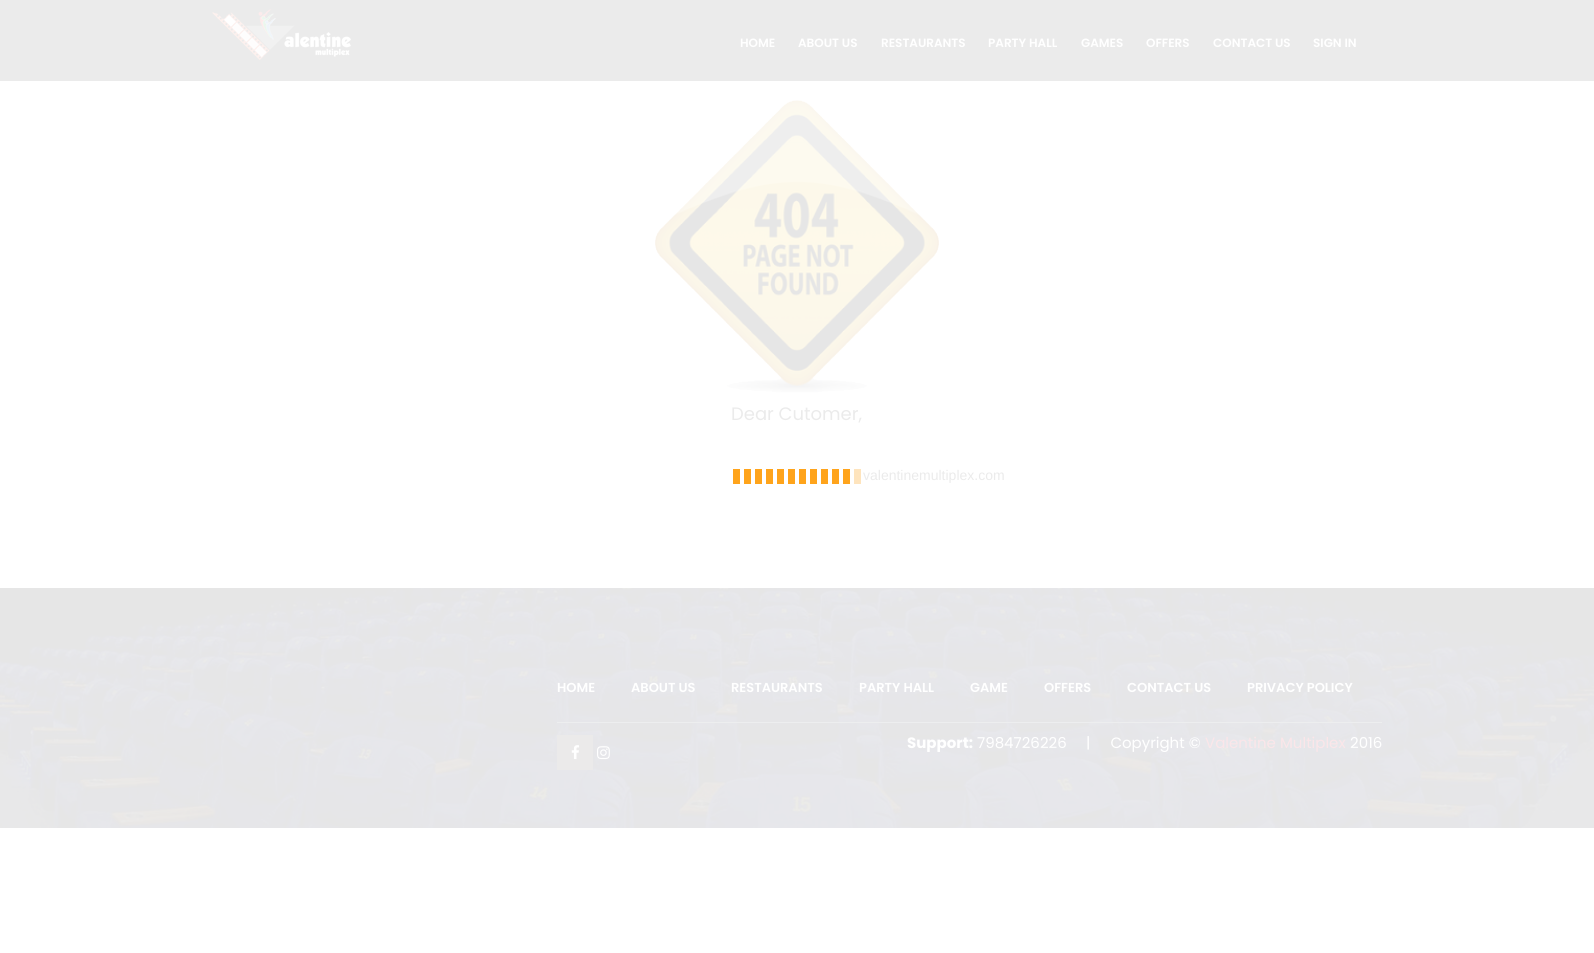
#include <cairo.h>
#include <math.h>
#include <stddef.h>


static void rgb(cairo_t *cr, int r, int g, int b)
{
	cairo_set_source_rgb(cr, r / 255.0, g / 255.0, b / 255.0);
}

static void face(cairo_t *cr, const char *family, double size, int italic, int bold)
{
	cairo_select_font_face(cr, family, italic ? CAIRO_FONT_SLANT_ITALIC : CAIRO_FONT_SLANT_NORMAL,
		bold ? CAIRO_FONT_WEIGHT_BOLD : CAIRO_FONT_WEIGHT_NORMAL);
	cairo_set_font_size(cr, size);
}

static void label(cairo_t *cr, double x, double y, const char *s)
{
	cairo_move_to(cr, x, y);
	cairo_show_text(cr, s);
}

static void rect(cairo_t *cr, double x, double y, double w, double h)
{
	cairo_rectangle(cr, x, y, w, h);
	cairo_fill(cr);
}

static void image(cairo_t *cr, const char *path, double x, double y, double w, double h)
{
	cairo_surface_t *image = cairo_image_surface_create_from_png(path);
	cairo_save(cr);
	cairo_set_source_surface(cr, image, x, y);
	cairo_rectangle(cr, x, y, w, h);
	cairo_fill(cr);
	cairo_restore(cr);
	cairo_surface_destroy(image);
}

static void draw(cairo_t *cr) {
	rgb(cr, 255, 255, 255);
	cairo_paint(cr);
	rgb(cr, 235, 235, 235);
	rect(cr, 0, 0, 1594, 81);
	image(cr, "image0.png", 212, 9, 139, 51);
	face(cr, "Poppins SemiBold", 12, 0, 0);
	rgb(cr, 255, 255, 255);
	label(cr, 740, 47, "HOME");
	label(cr, 798, 47, "ABOUT US");
	label(cr, 881, 47, "RESTAURANTS");
	label(cr, 988, 47, "PARTY HALL");
	label(cr, 1081, 47, "GAMES");
	label(cr, 1146, 47, "OFFERS");
	label(cr, 1213, 47, "CONTACT US");
	label(cr, 1313, 47, "SIGN IN");
	image(cr, "image1.png", 655, 100, 284, 293);
	face(cr, "Poppins", 18, 0, 0);
	rgb(cr, 235, 235, 235);
	label(cr, 731, 420, "Dear Cutomer,");
	face(cr, "Liberation Sans", 14, 0, 0);
	label(cr, 863, 480, "valentinemultiplex.com");
	image(cr, "image2.png", 733, 469, 128, 15);
	image(cr, "image3.png", 0, 588, 1594, 240);
	rgb(cr, 237, 238, 239);
	rect(cr, 557, 722, 825, 1);
	face(cr, "Poppins SemiBold", 13, 0, 0);
	rgb(cr, 255, 255, 255);
	label(cr, 557, 692, "HOME");
	label(cr, 631, 692, "ABOUT US");
	label(cr, 731, 692, "RESTAURANTS");
	label(cr, 859, 692, "PARTY HALL");
	label(cr, 970, 692, "GAME");
	label(cr, 1044, 692, "OFFERS");
	label(cr, 1127, 692, "CONTACT US");
	label(cr, 1247, 692, "PRIVACY POLICY");
	rgb(cr, 235, 234, 234);
	rect(cr, 557, 735, 36, 35);
	image(cr, "image4.png", 571, 745, 9, 15);
	image(cr, "image5.png", 597, 746, 13, 14);
	face(cr, "Poppins", 15, 0, 1);
	rgb(cr, 255, 255, 255);
	label(cr, 907, 748, "Support:");
	face(cr, "Poppins", 15, 0, 0);
	label(cr, 977, 748, "7984726226");
	label(cr, 1086, 748, "|     Copyright ©");
	rgb(cr, 251, 230, 233);
	label(cr, 1205, 748, "Valentine Multiplex");
	rgb(cr, 255, 255, 255);
	label(cr, 1350, 748, "2016");
}

int main(void) {
	cairo_surface_t *surface = cairo_image_surface_create(CAIRO_FORMAT_RGB24, 1594, 953);
	cairo_t *cr = cairo_create(surface);
	cairo_font_options_t *options = cairo_font_options_create();
	cairo_font_options_set_hint_metrics(options, CAIRO_HINT_METRICS_OFF);
	cairo_font_options_set_hint_style(options, CAIRO_HINT_STYLE_NONE);
	cairo_set_font_options(cr, options);
	cairo_set_miter_limit(cr, 4);
	draw(cr);
	cairo_surface_write_to_png(surface, "render.png");
	cairo_font_options_destroy(options);
	cairo_destroy(cr);
	cairo_surface_destroy(surface);
	return 0;
}
